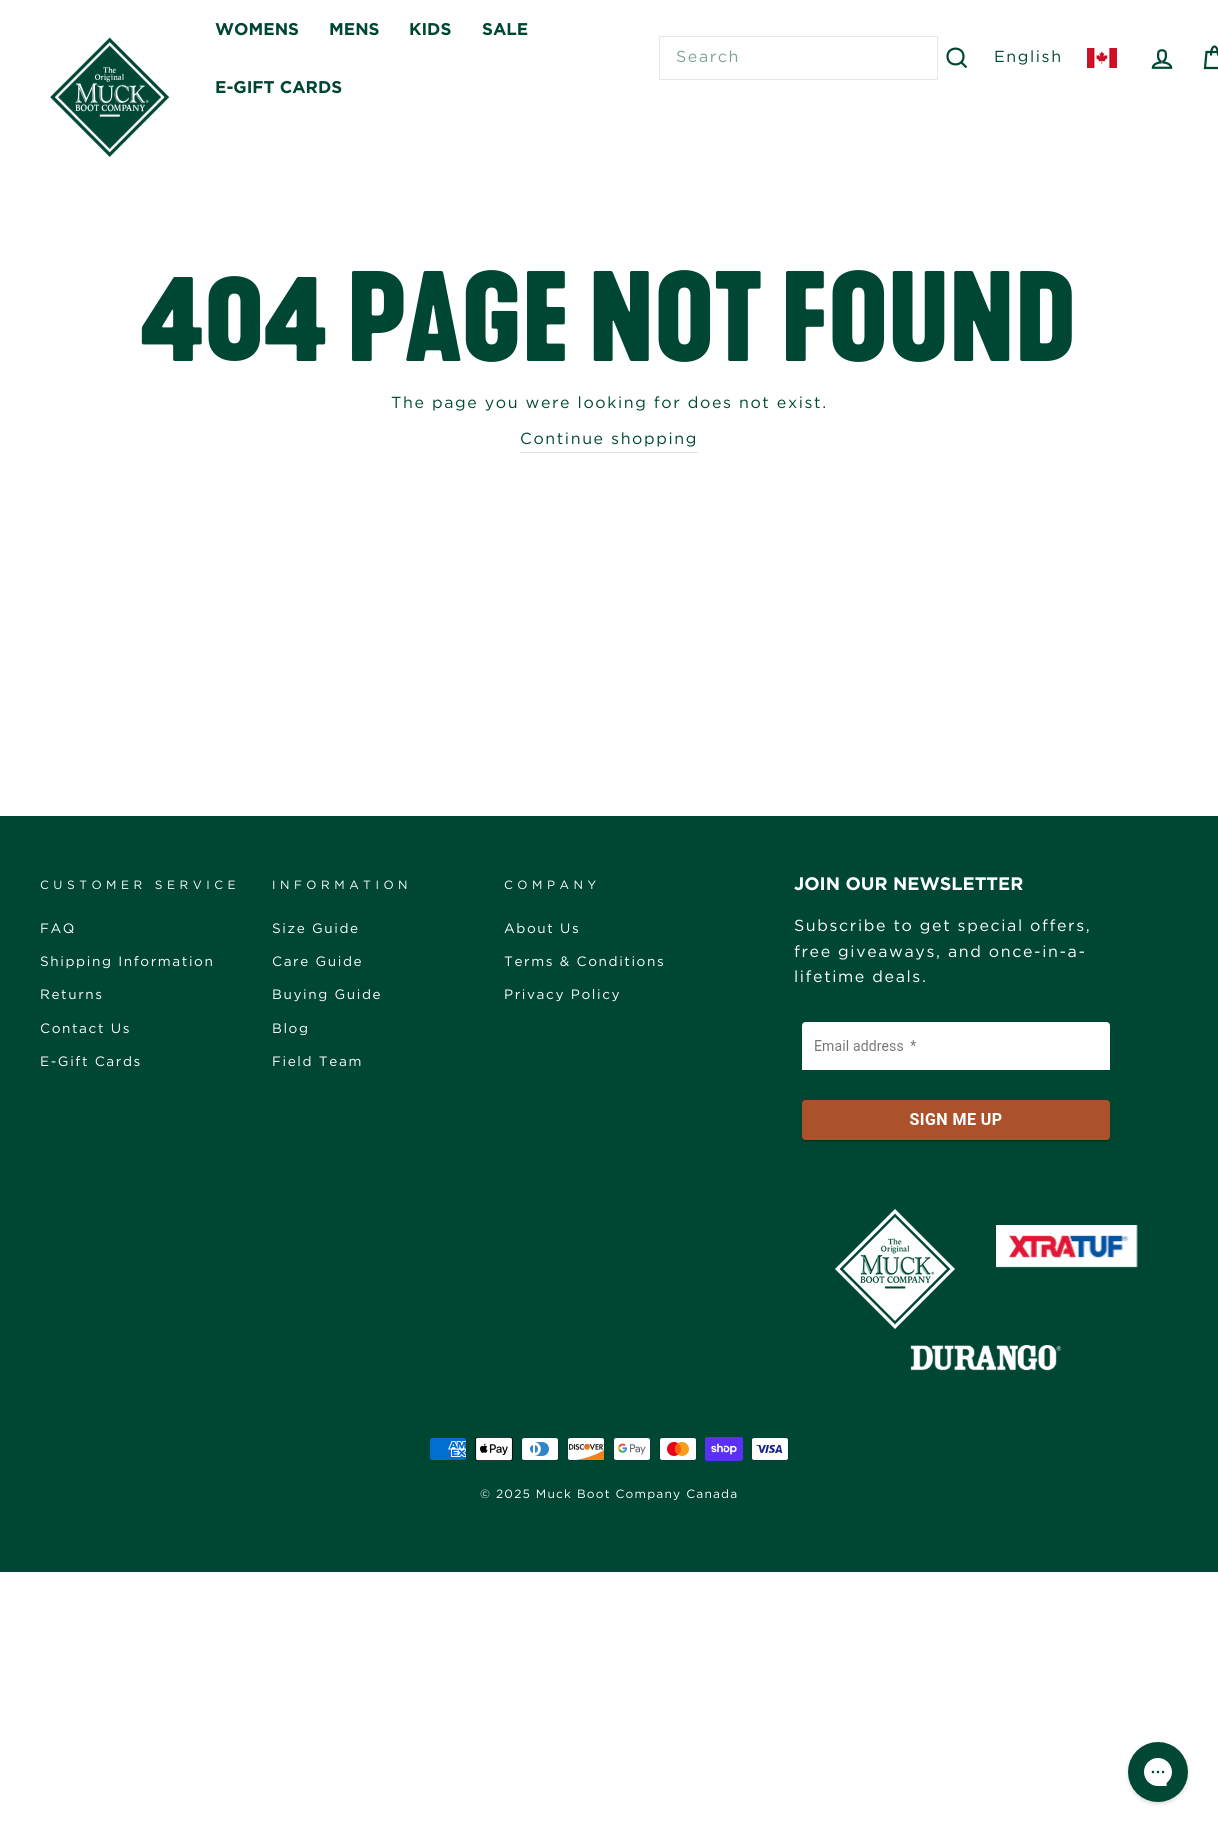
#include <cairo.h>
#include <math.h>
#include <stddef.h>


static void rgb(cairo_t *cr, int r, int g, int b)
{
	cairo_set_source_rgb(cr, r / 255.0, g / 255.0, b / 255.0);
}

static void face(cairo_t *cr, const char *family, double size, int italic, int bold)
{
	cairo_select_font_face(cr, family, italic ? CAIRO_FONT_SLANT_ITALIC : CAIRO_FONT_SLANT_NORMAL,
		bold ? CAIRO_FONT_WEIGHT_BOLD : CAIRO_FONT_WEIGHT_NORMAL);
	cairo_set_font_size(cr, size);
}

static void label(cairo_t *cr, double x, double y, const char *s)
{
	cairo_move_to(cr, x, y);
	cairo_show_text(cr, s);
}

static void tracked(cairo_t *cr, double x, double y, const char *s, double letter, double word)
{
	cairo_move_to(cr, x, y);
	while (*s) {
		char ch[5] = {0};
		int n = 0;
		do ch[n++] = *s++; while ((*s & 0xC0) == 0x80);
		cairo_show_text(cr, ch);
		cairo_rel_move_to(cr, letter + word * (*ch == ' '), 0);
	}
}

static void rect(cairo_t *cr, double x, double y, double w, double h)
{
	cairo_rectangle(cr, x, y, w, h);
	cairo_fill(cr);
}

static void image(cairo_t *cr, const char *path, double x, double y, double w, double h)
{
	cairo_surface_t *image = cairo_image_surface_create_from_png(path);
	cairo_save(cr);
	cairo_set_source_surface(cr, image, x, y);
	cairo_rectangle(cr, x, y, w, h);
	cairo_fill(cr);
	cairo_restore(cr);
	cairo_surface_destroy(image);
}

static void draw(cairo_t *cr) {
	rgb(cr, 255, 255, 255);
	cairo_paint(cr);
	image(cr, "image0.png", 50, 37, 120, 120);
	face(cr, "Gotham", 17, 0, 1);
	rgb(cr, 0, 71, 51);
	label(cr, 215, 35, "WOMENS");
	label(cr, 329, 35, "MENS");
	label(cr, 409, 35, "KIDS");
	label(cr, 482, 35, "SALE");
	label(cr, 215, 93, "E-GIFT CARDS");
	cairo_rectangle(cr, 659.5, 36.5, 278, 43);
	rgb(cr, 232, 232, 225);
	cairo_set_line_width(cr, 1);
	cairo_stroke(cr);
	face(cr, "Gotham", 16, 0, 0);
	rgb(cr, 128, 163, 153);
	tracked(cr, 676, 62, "Search", 1.6, 0);
	cairo_new_path(cr);
	cairo_move_to(cr, 963.5, 56.5);
	cairo_curve_to(cr, 963.5, 67, 947.5, 67, 947.5, 56.5);
	cairo_curve_to(cr, 947.5, 46, 963.5, 46, 963.5, 56.5);
	cairo_close_path(cr);
	cairo_move_to(cr, 966.5, 67.5);
	cairo_line_to(cr, 961.5, 62.5);
	rgb(cr, 0, 71, 51);
	cairo_set_line_width(cr, 2.2);
	cairo_stroke(cr);
	tracked(cr, 994, 62, "English", 1.6, 0);
	image(cr, "image1.png", 1087, 48, 30, 20);
	image(cr, "image2.png", 1151, 49, 22, 20);
	cairo_new_path(cr);
	cairo_move_to(cr, 1211, 55.5);
	cairo_curve_to(cr, 1211, 43.5, 1218, 43.5, 1218, 55.5);
	cairo_move_to(cr, 1206.5, 52);
	cairo_line_to(cr, 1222.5, 52);
	cairo_line_to(cr, 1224, 68);
	cairo_line_to(cr, 1205, 68);
	cairo_close_path(cr);
	cairo_stroke(cr);
	face(cr, "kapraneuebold", 120, 0, 1);
	label(cr, 141, 361, "404 PAGE NOT FOUND");
	face(cr, "Gotham", 16, 0, 0);
	tracked(cr, 391, 408, "The page you were looking for does not exist.", 1.6, 0);
	rgb(cr, 217, 227, 224);
	rect(cr, 520, 452, 178, 1);
	rgb(cr, 0, 71, 51);
	tracked(cr, 520, 444, "Continue shopping", 1.6, 0);
	rect(cr, 0, 816, 1218, 756);
	face(cr, "Gotham", 12, 0, 0);
	rgb(cr, 255, 255, 255);
	tracked(cr, 40, 889, "CUSTOMER SERVICE", 4.5, 0);
	face(cr, "Gotham", 13.6, 0, 0);
	tracked(cr, 40, 933, "FAQ", 1.6, 0);
	tracked(cr, 40, 966, "Shipping Information", 1.6, 0);
	tracked(cr, 40, 999, "Returns", 1.6, 0);
	tracked(cr, 40, 1033, "Contact Us", 1.6, 0);
	tracked(cr, 40, 1066, "E-Gift Cards", 1.6, 0);
	face(cr, "Gotham", 12, 0, 0);
	tracked(cr, 272, 889, "INFORMATION", 4.5, 0);
	face(cr, "Gotham", 13.6, 0, 0);
	tracked(cr, 272, 933, "Size Guide", 1.6, 0);
	tracked(cr, 272, 966, "Care Guide", 1.6, 0);
	tracked(cr, 272, 999, "Buying Guide", 1.6, 0);
	tracked(cr, 272, 1033, "Blog", 1.6, 0);
	tracked(cr, 272, 1066, "Field Team", 1.6, 0);
	face(cr, "Gotham", 12, 0, 0);
	tracked(cr, 504, 889, "COMPANY", 4.5, 0);
	face(cr, "Gotham", 13.6, 0, 0);
	tracked(cr, 504, 933, "About Us", 1.6, 0);
	tracked(cr, 504, 966, "Terms & Conditions", 1.6, 0);
	tracked(cr, 504, 999, "Privacy Policy", 1.6, 0);
	face(cr, "Gotham", 18.1, 0, 1);
	label(cr, 794, 890, "JOIN OUR NEWSLETTER");
	face(cr, "Gotham", 16, 0, 0);
	tracked(cr, 794, 931, "Subscribe to get special offers,", 1.6, 0);
	tracked(cr, 794, 957, "free giveaways, and once-in-a-", 1.6, 0);
	tracked(cr, 794, 982, "lifetime deals.", 1.6, 0);
	image(cr, "image3.png", 801, 1022, 310, 121);
	image(cr, "image4.png", 835, 1209, 120, 120);
	image(cr, "image5.png", 996, 1225, 142, 43);
	image(cr, "image6.png", 910, 1345, 151, 26);
	image(cr, "image7.png", 429, 1437, 38, 24);
	image(cr, "image8.png", 475, 1437, 38, 24);
	image(cr, "image9.png", 521, 1437, 38, 24);
	image(cr, "image10.png", 567, 1437, 38, 24);
	image(cr, "image11.png", 613, 1437, 38, 24);
	image(cr, "image12.png", 659, 1437, 38, 24);
	image(cr, "image13.png", 705, 1437, 38, 24);
	image(cr, "image14.png", 751, 1437, 38, 24);
	face(cr, "Gotham", 12, 0, 0);
	tracked(cr, 480, 1498, "© 2025 Muck Boot Company Canada", 1.2, 0);
	image(cr, "image15.png", 1126, 1742, 64, 64);
}

int main(void) {
	cairo_surface_t *surface = cairo_image_surface_create(CAIRO_FORMAT_RGB24, 1218, 1829);
	cairo_t *cr = cairo_create(surface);
	cairo_font_options_t *options = cairo_font_options_create();
	cairo_font_options_set_hint_metrics(options, CAIRO_HINT_METRICS_OFF);
	cairo_font_options_set_hint_style(options, CAIRO_HINT_STYLE_NONE);
	cairo_set_font_options(cr, options);
	cairo_set_miter_limit(cr, 4);
	draw(cr);
	cairo_surface_write_to_png(surface, "render.png");
	cairo_font_options_destroy(options);
	cairo_destroy(cr);
	cairo_surface_destroy(surface);
	return 0;
}
